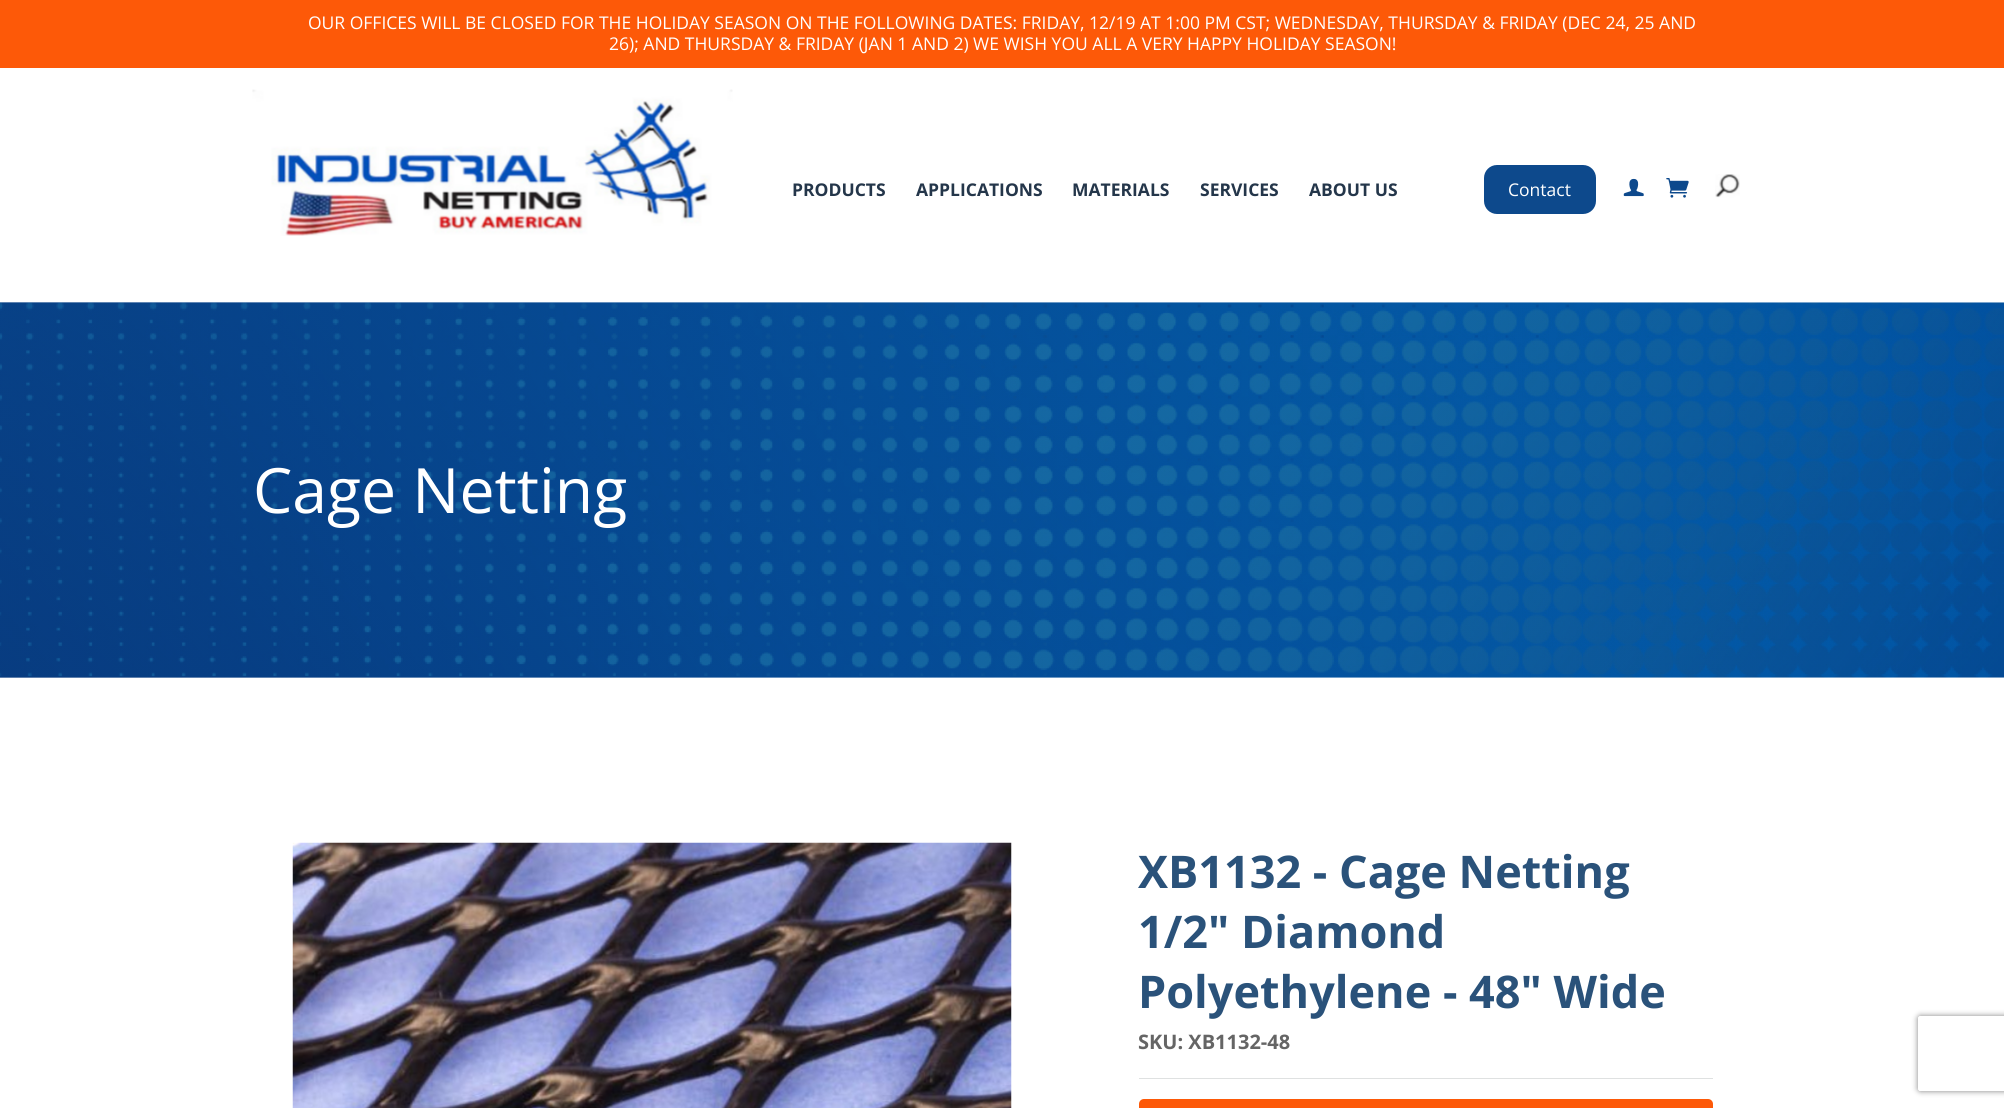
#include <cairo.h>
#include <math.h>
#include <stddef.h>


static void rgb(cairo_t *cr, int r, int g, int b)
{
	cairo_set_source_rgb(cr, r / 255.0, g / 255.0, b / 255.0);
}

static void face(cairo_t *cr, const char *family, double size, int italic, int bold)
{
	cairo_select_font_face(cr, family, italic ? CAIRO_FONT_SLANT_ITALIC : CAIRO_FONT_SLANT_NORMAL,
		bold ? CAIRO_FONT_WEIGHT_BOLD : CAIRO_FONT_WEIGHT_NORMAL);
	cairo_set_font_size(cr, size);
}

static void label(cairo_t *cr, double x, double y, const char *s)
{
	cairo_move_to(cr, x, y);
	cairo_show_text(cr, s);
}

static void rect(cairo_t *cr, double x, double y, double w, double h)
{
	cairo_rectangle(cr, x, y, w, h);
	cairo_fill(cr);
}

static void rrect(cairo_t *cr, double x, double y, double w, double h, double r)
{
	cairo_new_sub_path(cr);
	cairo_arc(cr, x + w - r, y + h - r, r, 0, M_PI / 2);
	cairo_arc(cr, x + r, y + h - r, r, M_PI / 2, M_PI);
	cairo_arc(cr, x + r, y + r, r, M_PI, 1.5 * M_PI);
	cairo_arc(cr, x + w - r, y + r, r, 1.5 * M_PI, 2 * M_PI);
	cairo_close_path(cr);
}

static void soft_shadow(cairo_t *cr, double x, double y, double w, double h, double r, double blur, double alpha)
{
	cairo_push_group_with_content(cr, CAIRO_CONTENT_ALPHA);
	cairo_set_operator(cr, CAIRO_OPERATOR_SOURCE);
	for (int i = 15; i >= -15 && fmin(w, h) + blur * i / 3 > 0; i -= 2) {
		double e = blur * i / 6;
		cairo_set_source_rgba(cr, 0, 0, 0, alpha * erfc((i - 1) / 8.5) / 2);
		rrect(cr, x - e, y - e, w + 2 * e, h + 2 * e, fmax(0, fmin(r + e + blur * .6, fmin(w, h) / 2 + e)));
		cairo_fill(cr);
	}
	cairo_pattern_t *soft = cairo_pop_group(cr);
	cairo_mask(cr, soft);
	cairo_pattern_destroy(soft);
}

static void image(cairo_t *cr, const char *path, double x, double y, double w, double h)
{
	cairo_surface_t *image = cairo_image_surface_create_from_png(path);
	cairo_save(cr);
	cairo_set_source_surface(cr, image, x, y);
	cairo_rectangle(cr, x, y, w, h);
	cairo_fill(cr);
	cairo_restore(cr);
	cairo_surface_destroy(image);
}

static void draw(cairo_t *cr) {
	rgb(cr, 255, 255, 255);
	cairo_paint(cr);
	rgb(cr, 253, 89, 8);
	rect(cr, 0, 0, 2004, 68);
	face(cr, "Open Sans", 17.5, 0, 0);
	rgb(cr, 255, 255, 255);
	label(cr, 308, 29, "OUR OFFICES WILL BE CLOSED FOR THE HOLIDAY SEASON ON THE FOLLOWING DATES: FRIDAY, 12/19 AT 1:00 PM CST; WEDNESDAY, THURSDAY & FRIDAY (DEC 24, 25 AND");
	label(cr, 609, 50, "26); AND THURSDAY & FRIDAY (JAN 1 AND 2) WE WISH YOU ALL A VERY HAPPY HOLIDAY SEASON!");
	image(cr, "image0.png", 252, 89, 481, 147);
	face(cr, "Open Sans", 17.5, 0, 1);
	rgb(cr, 36, 54, 74);
	label(cr, 792, 196, "PRODUCTS");
	label(cr, 916, 196, "APPLICATIONS");
	label(cr, 1072, 196, "MATERIALS");
	label(cr, 1200, 196, "SERVICES");
	label(cr, 1309, 196, "ABOUT US");
	rgb(cr, 13, 73, 140);
	rrect(cr, 1484, 165, 112, 49, 13);
	cairo_fill(cr);
	face(cr, "Open Sans", 17.5, 0, 0);
	rgb(cr, 255, 255, 255);
	label(cr, 1508, 196, "Contact");
	image(cr, "image1.png", 1623, 178, 21, 19);
	image(cr, "image2.png", 1666, 178, 23, 20);
	image(cr, "image3.png", 1715, 174, 25, 24);
	image(cr, "image4.png", 0, 302, 2004, 376);
	face(cr, "Open Sans", 62.5, 0, 0);
	label(cr, 253, 513, "Cage Netting");
	image(cr, "image5.png", 292, 842, 720, 266);
	face(cr, "Open Sans", 45, 0, 1);
	rgb(cr, 42, 82, 122);
	label(cr, 1138, 888, "XB1132 - Cage Netting");
	label(cr, 1138, 948, "1/2\" Diamond");
	label(cr, 1138, 1008, "Polyethylene - 48\" Wide");
	face(cr, "Open Sans", 20, 0, 1);
	rgb(cr, 101, 101, 101);
	label(cr, 1138, 1049, "SKU: XB1132-48");
	rgb(cr, 223, 225, 225);
	rect(cr, 1139, 1078, 574, 1);
	rgb(cr, 253, 89, 8);
	rrect(cr, 1139, 1099, 574, 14, 5);
	cairo_fill(cr);
	cairo_save(cr);
	cairo_set_fill_rule(cr, CAIRO_FILL_RULE_EVEN_ODD);
	cairo_new_path(cr);
	cairo_move_to(cr, 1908, 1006);
	cairo_line_to(cr, 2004, 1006);
	cairo_line_to(cr, 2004, 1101);
	cairo_line_to(cr, 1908, 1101);
	cairo_close_path(cr);
	cairo_move_to(cr, 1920.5, 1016);
	cairo_line_to(cr, 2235.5, 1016);
	cairo_curve_to(cr, 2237, 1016, 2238, 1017, 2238, 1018.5);
	cairo_line_to(cr, 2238, 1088.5);
	cairo_curve_to(cr, 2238, 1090, 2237, 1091, 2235.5, 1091);
	cairo_line_to(cr, 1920.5, 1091);
	cairo_curve_to(cr, 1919, 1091, 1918, 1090, 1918, 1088.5);
	cairo_line_to(cr, 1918, 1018.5);
	cairo_curve_to(cr, 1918, 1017, 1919, 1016, 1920.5, 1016);
	cairo_close_path(cr);
	cairo_clip(cr);
	rgb(cr, 128, 128, 128);
	soft_shadow(cr, 1918, 1016, 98, 75, 2.5, 3, 1);
	cairo_restore(cr);
}

int main(void) {
	cairo_surface_t *surface = cairo_image_surface_create(CAIRO_FORMAT_RGB24, 2004, 1108);
	cairo_t *cr = cairo_create(surface);
	cairo_font_options_t *options = cairo_font_options_create();
	cairo_font_options_set_hint_metrics(options, CAIRO_HINT_METRICS_OFF);
	cairo_font_options_set_hint_style(options, CAIRO_HINT_STYLE_NONE);
	cairo_set_font_options(cr, options);
	cairo_set_miter_limit(cr, 4);
	draw(cr);
	cairo_surface_write_to_png(surface, "render.png");
	cairo_font_options_destroy(options);
	cairo_destroy(cr);
	cairo_surface_destroy(surface);
	return 0;
}
